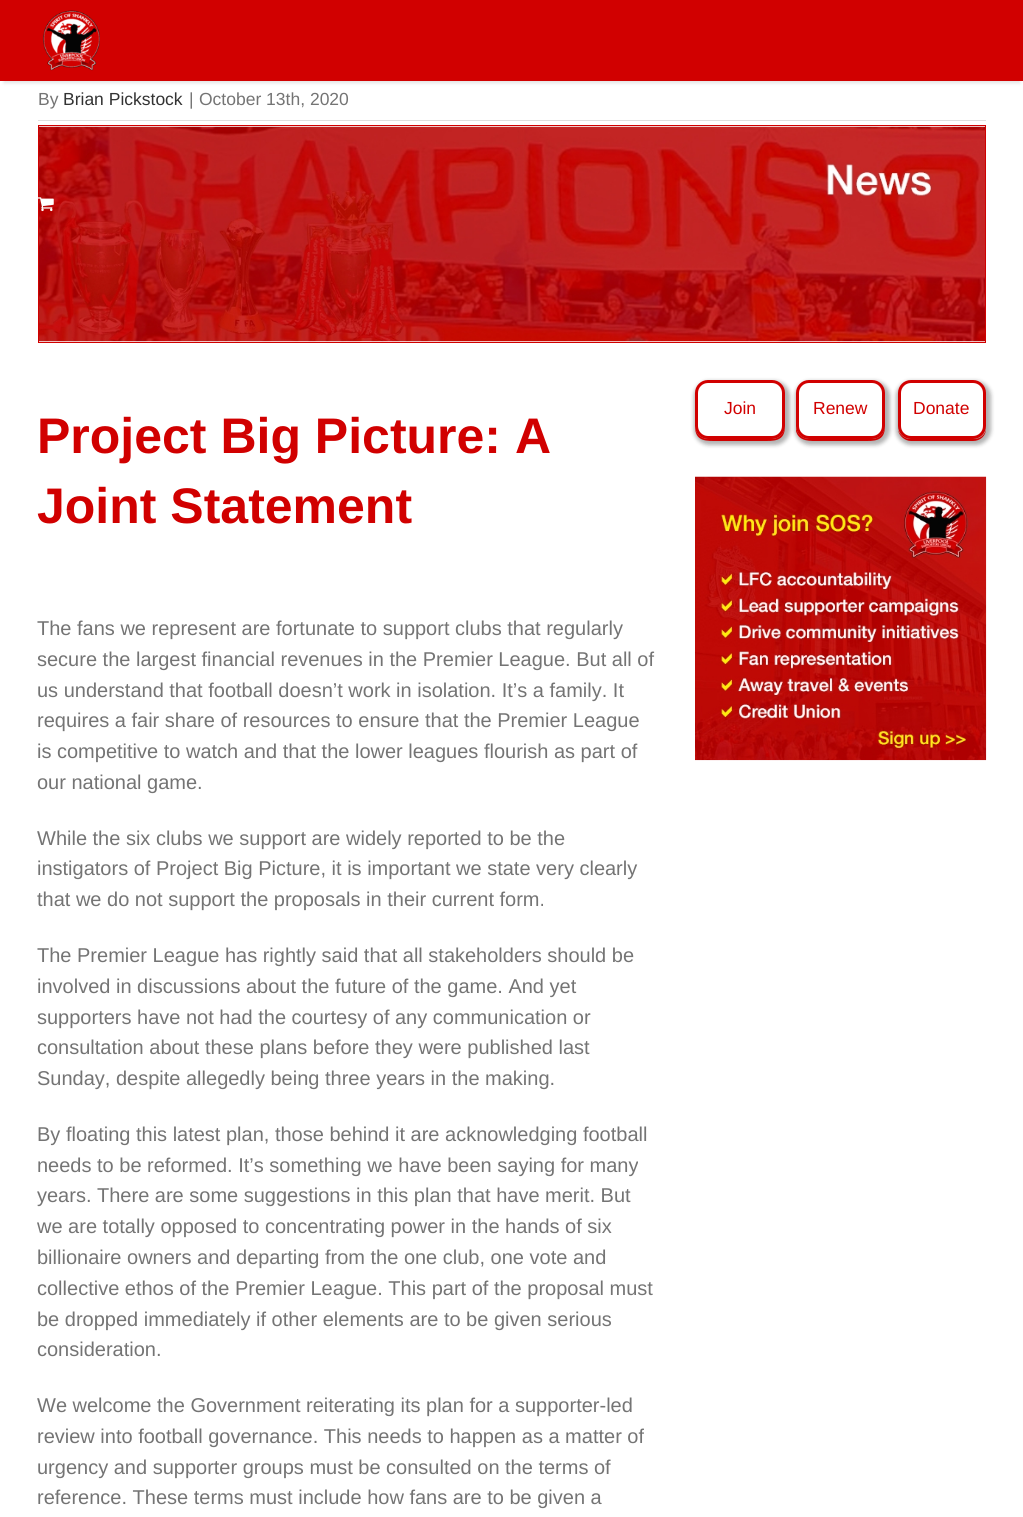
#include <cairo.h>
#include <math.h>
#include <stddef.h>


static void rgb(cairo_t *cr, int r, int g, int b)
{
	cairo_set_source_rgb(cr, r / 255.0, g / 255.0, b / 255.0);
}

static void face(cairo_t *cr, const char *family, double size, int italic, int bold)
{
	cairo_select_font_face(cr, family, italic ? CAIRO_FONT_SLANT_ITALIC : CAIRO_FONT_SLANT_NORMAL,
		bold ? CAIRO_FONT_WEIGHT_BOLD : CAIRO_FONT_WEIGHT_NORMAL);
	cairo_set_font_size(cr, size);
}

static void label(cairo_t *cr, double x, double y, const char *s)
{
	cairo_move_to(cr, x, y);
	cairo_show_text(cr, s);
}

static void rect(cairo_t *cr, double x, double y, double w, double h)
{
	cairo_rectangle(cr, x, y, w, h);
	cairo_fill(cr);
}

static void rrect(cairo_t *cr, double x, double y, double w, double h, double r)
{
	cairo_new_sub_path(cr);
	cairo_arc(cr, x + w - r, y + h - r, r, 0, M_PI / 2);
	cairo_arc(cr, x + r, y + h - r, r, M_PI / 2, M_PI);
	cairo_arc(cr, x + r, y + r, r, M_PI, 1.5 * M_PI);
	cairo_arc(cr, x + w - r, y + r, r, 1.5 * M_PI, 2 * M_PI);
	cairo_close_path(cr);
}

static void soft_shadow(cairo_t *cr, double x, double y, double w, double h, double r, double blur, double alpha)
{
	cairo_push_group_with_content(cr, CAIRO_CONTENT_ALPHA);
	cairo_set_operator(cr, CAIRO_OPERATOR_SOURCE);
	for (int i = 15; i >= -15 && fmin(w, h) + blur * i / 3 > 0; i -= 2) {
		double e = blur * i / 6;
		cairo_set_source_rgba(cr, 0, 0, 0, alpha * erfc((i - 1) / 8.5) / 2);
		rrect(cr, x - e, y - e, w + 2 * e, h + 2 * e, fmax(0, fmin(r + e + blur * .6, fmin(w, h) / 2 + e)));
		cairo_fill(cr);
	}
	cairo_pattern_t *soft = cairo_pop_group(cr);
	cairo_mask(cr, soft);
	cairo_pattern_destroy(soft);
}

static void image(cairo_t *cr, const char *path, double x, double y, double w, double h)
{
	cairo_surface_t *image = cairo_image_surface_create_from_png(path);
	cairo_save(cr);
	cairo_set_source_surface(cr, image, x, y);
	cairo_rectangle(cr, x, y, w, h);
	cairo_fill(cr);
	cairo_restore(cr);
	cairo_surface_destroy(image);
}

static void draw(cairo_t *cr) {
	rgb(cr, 255, 255, 255);
	cairo_paint(cr);
	rgb(cr, 0, 0, 0);
	soft_shadow(cr, 4, 9, 1016, 74, 0, 2, 0.12);
	rgb(cr, 209, 0, 0);
	rect(cr, 0, 0, 1023, 81);
	image(cr, "image0.png", 42, 10, 58, 61);
	cairo_rectangle(cr, 38.5, 125.5, 947, 217);
	cairo_set_line_width(cr, 1);
	cairo_stroke(cr);
	image(cr, "image2.png", 39, 126, 946, 216);
	image(cr, "image1.png", 38, 197, 16, 15);
	rgb(cr, 224, 222, 222);
	rect(cr, 38, 120, 948, 1);
	face(cr, "Liberation Sans", 17.5, 0, 0);
	rgb(cr, 116, 116, 116);
	label(cr, 38, 105, "By");
	rgb(cr, 51, 51, 51);
	label(cr, 63, 105, "Brian Pickstock");
	rgb(cr, 116, 116, 116);
	label(cr, 189, 105, "|");
	label(cr, 199, 105, "October 13th, 2020");
	rgb(cr, 0, 0, 0);
	soft_shadow(cr, 694, 381, 96, 64, 15, 2, 0.3);
	rgb(cr, 209, 0, 0);
	cairo_new_path(cr);
	cairo_move_to(cr, 695, 426);
	cairo_curve_to(cr, 695, 442, 706, 441, 719, 441);
	cairo_line_to(cr, 761, 441);
	cairo_curve_to(cr, 774, 441, 785, 442, 785, 426);
	cairo_curve_to(cr, 785, 433, 779, 439, 772, 439);
	cairo_line_to(cr, 708, 439);
	cairo_curve_to(cr, 701, 439, 695, 433, 695, 426);
	cairo_close_path(cr);
	cairo_fill(cr);
	rgb(cr, 255, 255, 255);
	rrect(cr, 696.5, 381.5, 87, 56, 11.5);
	cairo_fill_preserve(cr);
	rgb(cr, 209, 0, 0);
	cairo_set_line_width(cr, 3);
	cairo_stroke(cr);
	label(cr, 724, 414, "Join");
	rgb(cr, 0, 0, 0);
	soft_shadow(cr, 795, 381, 95, 64, 15, 2, 0.3);
	rgb(cr, 209, 0, 0);
	cairo_new_path(cr);
	cairo_move_to(cr, 796, 393);
	cairo_line_to(cr, 796, 431);
	cairo_curve_to(cr, 799, 442, 810, 441, 820, 441);
	cairo_line_to(cr, 862, 441);
	cairo_curve_to(cr, 874, 441, 885, 442, 885, 426);
	cairo_curve_to(cr, 885, 433, 879, 439, 872, 439);
	cairo_line_to(cr, 809, 439);
	cairo_curve_to(cr, 802, 439, 796, 433, 796, 426);
	cairo_close_path(cr);
	cairo_fill(cr);
	rgb(cr, 255, 255, 255);
	rrect(cr, 797.5, 381.5, 86, 56, 11.5);
	cairo_fill_preserve(cr);
	rgb(cr, 209, 0, 0);
	cairo_stroke(cr);
	label(cr, 813, 414, "Renew");
	rgb(cr, 0, 0, 0);
	soft_shadow(cr, 896, 381, 95, 64, 15, 2, 0.3);
	rgb(cr, 209, 0, 0);
	cairo_new_path(cr);
	cairo_move_to(cr, 898, 430);
	cairo_curve_to(cr, 899, 436, 905, 441, 911, 441);
	cairo_line_to(cr, 973, 441);
	cairo_curve_to(cr, 980, 441, 986, 436, 986, 429);
	cairo_curve_to(cr, 985, 435, 980, 439, 974, 439);
	cairo_line_to(cr, 910, 439);
	cairo_curve_to(cr, 905, 439, 900, 435, 898, 430);
	cairo_close_path(cr);
	cairo_fill(cr);
	rgb(cr, 255, 255, 255);
	rrect(cr, 899.5, 381.5, 85, 56, 11.5);
	cairo_fill_preserve(cr);
	rgb(cr, 209, 0, 0);
	cairo_stroke(cr);
	label(cr, 913, 414, "Donate");
	image(cr, "image3.png", 695, 476, 292, 285);
	face(cr, "Liberation Sans", 50, 0, 1);
	label(cr, 37, 453, "Project Big Picture: A");
	label(cr, 37, 523, "Joint Statement");
	face(cr, "Liberation Sans", 20, 0, 0);
	rgb(cr, 116, 116, 116);
	label(cr, 37, 635, "The fans we represent are fortunate to support clubs that regularly");
	label(cr, 37, 666, "secure the largest financial revenues in the Premier League. But all of");
	label(cr, 37, 697, "us understand that football doesn’t work in isolation. It’s a family. It");
	label(cr, 37, 727, "requires a fair share of resources to ensure that the Premier League");
	label(cr, 37, 758, "is competitive to watch and that the lower leagues flourish as part of");
	label(cr, 37, 789, "our national game.");
	label(cr, 37, 845, "While the six clubs we support are widely reported to be the");
	label(cr, 37, 875, "instigators of Project Big Picture, it is important we state very clearly");
	label(cr, 37, 906, "that we do not support the proposals in their current form.");
	label(cr, 37, 962, "The Premier League has rightly said that all stakeholders should be");
	label(cr, 37, 993, "involved in discussions about the future of the game. And yet");
	label(cr, 37, 1024, "supporters have not had the courtesy of any communication or");
	label(cr, 37, 1054, "consultation about these plans before they were published last");
	label(cr, 37, 1085, "Sunday, despite allegedly being three years in the making.");
	label(cr, 37, 1141, "By floating this latest plan, those behind it are acknowledging football");
	label(cr, 37, 1172, "needs to be reformed. It’s something we have been saying for many");
	label(cr, 37, 1202, "years. There are some suggestions in this plan that have merit. But");
	label(cr, 37, 1233, "we are totally opposed to concentrating power in the hands of six");
	label(cr, 37, 1264, "billionaire owners and departing from the one club, one vote and");
	label(cr, 37, 1295, "collective ethos of the Premier League. This part of the proposal must");
	label(cr, 37, 1326, "be dropped immediately if other elements are to be given serious");
	label(cr, 37, 1356, "consideration.");
	label(cr, 37, 1412, "We welcome the Government reiterating its plan for a supporter-led");
	label(cr, 37, 1443, "review into football governance. This needs to happen as a matter of");
	label(cr, 37, 1474, "urgency and supporter groups must be consulted on the terms of");
	label(cr, 37, 1504, "reference. These terms must include how fans are to be given a");
}

int main(void) {
	cairo_surface_t *surface = cairo_image_surface_create(CAIRO_FORMAT_RGB24, 1023, 1517);
	cairo_t *cr = cairo_create(surface);
	cairo_font_options_t *options = cairo_font_options_create();
	cairo_font_options_set_hint_metrics(options, CAIRO_HINT_METRICS_OFF);
	cairo_font_options_set_hint_style(options, CAIRO_HINT_STYLE_NONE);
	cairo_set_font_options(cr, options);
	cairo_set_miter_limit(cr, 4);
	draw(cr);
	cairo_surface_write_to_png(surface, "render.png");
	cairo_font_options_destroy(options);
	cairo_destroy(cr);
	cairo_surface_destroy(surface);
	return 0;
}
